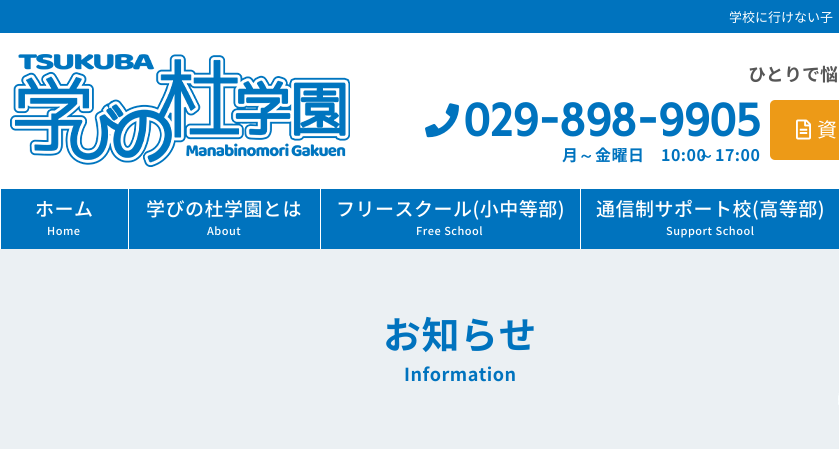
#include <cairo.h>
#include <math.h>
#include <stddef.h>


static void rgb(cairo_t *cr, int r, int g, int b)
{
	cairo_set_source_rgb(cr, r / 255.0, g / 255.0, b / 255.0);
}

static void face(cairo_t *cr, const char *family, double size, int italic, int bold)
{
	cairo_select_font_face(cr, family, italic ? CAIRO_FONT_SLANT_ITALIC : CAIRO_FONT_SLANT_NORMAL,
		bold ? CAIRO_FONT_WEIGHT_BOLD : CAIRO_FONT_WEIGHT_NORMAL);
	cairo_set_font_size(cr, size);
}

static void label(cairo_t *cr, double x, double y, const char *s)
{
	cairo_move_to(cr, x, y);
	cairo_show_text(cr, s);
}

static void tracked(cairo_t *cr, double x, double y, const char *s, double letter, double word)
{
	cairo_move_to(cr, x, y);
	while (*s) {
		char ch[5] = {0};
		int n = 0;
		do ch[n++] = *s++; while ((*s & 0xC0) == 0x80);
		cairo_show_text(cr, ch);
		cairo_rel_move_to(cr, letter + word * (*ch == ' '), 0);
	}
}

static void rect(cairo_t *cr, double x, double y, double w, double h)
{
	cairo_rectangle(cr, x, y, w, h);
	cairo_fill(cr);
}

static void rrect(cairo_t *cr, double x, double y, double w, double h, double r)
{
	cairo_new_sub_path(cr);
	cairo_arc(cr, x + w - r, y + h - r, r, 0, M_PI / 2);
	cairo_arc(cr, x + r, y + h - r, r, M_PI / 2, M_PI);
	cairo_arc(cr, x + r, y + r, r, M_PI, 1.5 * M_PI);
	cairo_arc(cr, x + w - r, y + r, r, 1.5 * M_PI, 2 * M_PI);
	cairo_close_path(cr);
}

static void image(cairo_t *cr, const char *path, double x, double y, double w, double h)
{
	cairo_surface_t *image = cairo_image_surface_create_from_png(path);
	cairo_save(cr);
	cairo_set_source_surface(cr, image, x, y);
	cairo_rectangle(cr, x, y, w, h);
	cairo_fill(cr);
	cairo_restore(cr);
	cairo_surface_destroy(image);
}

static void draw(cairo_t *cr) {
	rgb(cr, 255, 255, 255);
	cairo_paint(cr);
	rgb(cr, 0, 115, 190);
	rect(cr, 0, 0, 839, 33);
	face(cr, "Noto Sans JP", 13, 0, 0);
	rgb(cr, 255, 255, 255);
	label(cr, 729, 22, "学校に行けない子");
	image(cr, "image0.png", 10, 54, 340, 113);
	face(cr, "Noto Sans JP", 18, 0, 1);
	rgb(cr, 86, 86, 86);
	label(cr, 748, 81, "ひとりで悩");
	image(cr, "image1.png", 425, 103, 34, 35);
	face(cr, "Tauri", 42, 0, 1);
	rgb(cr, 0, 115, 190);
	tracked(cr, 463, 136, "029-898-9905", -1, 0);
	face(cr, "Noto Sans JP", 16, 0, 1);
	tracked(cr, 562, 161, "月", 0.5, 0);
	face(cr, "WenQuanYi Zen Hei", 16, 0, 1);
	tracked(cr, 578, 161, "～", 0.5, 0);
	face(cr, "Noto Sans JP", 16, 0, 1);
	tracked(cr, 595, 161, "金曜日 10:00", 0.5, 0);
	face(cr, "WenQuanYi Zen Hei", 16, 0, 1);
	tracked(cr, 698, 161, "～", 0.5, 0);
	face(cr, "Noto Sans JP", 16, 0, 1);
	tracked(cr, 715, 161, "17:00", 0.5, 0);
	rgb(cr, 237, 154, 23);
	rrect(cr, 770, 100, 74, 60, 5);
	cairo_fill(cr);
	image(cr, "image2.png", 796, 119, 15, 21);
	face(cr, "Noto Sans JP", 20, 0, 0);
	rgb(cr, 255, 255, 255);
	tracked(cr, 817, 137, "資", 0.5, 0);
	rgb(cr, 0, 115, 190);
	rect(cr, 1, 189, 838, 60);
	face(cr, "Noto Sans JP Medium", 19, 0, 0);
	rgb(cr, 255, 255, 255);
	tracked(cr, 35, 216, "ホーム", 0.5, 0);
	face(cr, "Noto Sans JP Medium", 11, 0, 0);
	tracked(cr, 47, 235, "Home", 0.5, 0);
	rect(cr, 128, 189, 1, 60);
	face(cr, "Noto Sans JP Medium", 19, 0, 0);
	tracked(cr, 146, 216, "学びの杜学園とは", 0.5, 0);
	face(cr, "Noto Sans JP Medium", 11, 0, 0);
	tracked(cr, 207, 235, "About", 0.5, 0);
	rect(cr, 320, 189, 1, 60);
	face(cr, "Noto Sans JP Medium", 19, 0, 0);
	tracked(cr, 336, 216, "フリースクール(小中等部)", 0.5, 0);
	face(cr, "Noto Sans JP Medium", 11, 0, 0);
	tracked(cr, 416, 235, "Free School", 0.5, 0);
	rect(cr, 580, 189, 1, 60);
	face(cr, "Noto Sans JP Medium", 19, 0, 0);
	tracked(cr, 596, 216, "通信制サポート校(高等部)", 0.5, 0);
	face(cr, "Noto Sans JP Medium", 11, 0, 0);
	tracked(cr, 666, 235, "Support School", 0.5, 0);
	rgb(cr, 235, 240, 243);
	rect(cr, 0, 249, 839, 200);
	image(cr, "image3.png", 838, 393, 1, 12);
	face(cr, "Noto Sans JP", 38, 0, 1);
	rgb(cr, 0, 115, 190);
	tracked(cr, 383, 349, "お知らせ", 0.5, 0);
	face(cr, "Noto Sans JP", 18, 0, 1);
	tracked(cr, 404, 381, "Information", 0.5, 0);
}

int main(void) {
	cairo_surface_t *surface = cairo_image_surface_create(CAIRO_FORMAT_RGB24, 839, 474);
	cairo_t *cr = cairo_create(surface);
	cairo_font_options_t *options = cairo_font_options_create();
	cairo_font_options_set_hint_metrics(options, CAIRO_HINT_METRICS_OFF);
	cairo_font_options_set_hint_style(options, CAIRO_HINT_STYLE_NONE);
	cairo_set_font_options(cr, options);
	cairo_set_miter_limit(cr, 4);
	draw(cr);
	cairo_surface_write_to_png(surface, "render.png");
	cairo_font_options_destroy(options);
	cairo_destroy(cr);
	cairo_surface_destroy(surface);
	return 0;
}
